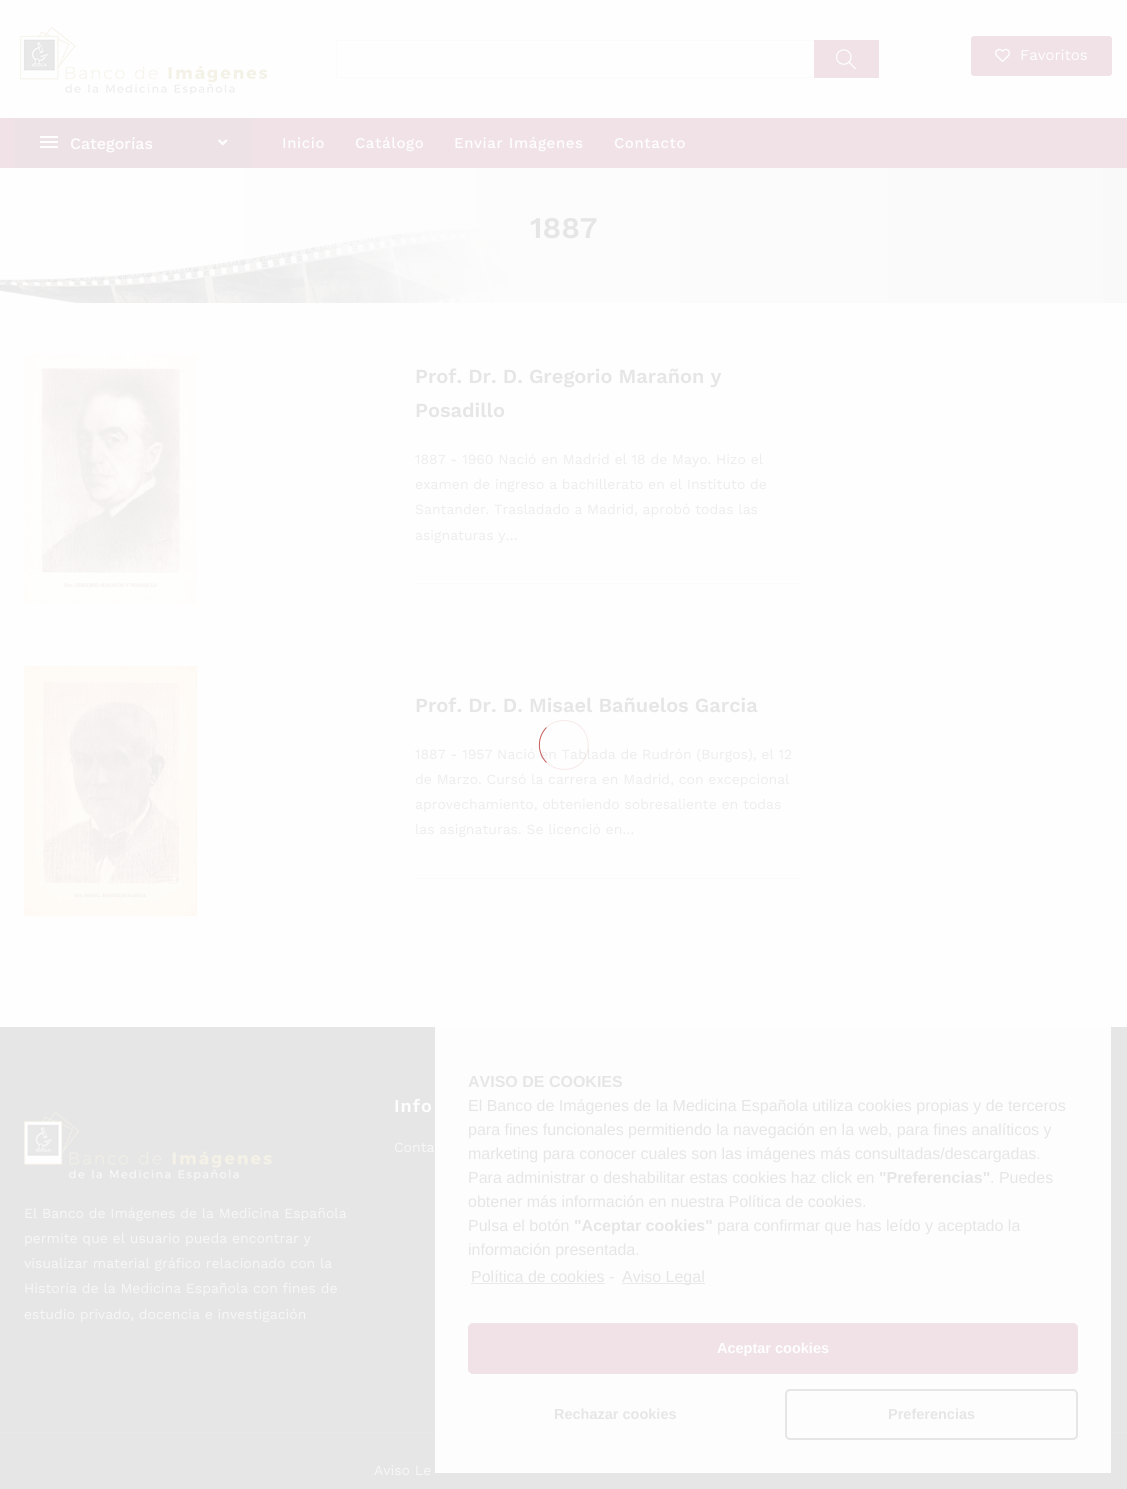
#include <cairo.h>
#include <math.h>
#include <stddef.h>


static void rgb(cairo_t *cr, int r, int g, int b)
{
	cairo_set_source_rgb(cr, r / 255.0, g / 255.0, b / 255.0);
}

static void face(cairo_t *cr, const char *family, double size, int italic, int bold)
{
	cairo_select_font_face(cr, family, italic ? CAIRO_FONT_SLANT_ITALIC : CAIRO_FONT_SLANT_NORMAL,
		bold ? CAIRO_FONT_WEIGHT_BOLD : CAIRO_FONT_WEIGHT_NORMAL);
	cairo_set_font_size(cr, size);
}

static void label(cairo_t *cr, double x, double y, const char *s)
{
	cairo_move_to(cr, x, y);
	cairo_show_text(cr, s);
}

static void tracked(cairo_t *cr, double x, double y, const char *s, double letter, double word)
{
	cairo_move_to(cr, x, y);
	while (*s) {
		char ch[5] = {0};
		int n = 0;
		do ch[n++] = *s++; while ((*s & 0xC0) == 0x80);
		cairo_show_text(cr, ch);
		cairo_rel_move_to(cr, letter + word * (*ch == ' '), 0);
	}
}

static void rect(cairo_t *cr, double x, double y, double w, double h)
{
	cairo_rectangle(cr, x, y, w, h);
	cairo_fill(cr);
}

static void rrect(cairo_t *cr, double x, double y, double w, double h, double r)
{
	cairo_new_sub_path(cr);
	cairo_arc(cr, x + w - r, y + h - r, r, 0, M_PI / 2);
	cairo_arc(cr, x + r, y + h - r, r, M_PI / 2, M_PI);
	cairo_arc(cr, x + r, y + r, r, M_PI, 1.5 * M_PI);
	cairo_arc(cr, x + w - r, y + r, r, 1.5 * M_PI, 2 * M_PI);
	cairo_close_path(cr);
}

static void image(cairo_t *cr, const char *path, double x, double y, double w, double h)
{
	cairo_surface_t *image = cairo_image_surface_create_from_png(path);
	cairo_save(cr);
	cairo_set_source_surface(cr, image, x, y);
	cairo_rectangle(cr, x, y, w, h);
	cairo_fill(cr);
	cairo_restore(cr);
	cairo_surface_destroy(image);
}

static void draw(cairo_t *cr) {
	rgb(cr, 254, 254, 254);
	cairo_paint(cr);
	image(cr, "image0.png", 20, 27, 247, 67);
	cairo_rectangle(cr, 336.5, 40.5, 542, 37);
	rgb(cr, 251, 251, 251);
	cairo_set_line_width(cr, 1);
	cairo_stroke(cr);
	rgb(cr, 240, 226, 230);
	rect(cr, 814, 40, 65, 38);
	image(cr, "image1.png", 836, 49, 20, 21);
	rrect(cr, 971, 36, 141, 40, 3);
	cairo_fill(cr);
	image(cr, "image2.png", 995, 48, 15, 14);
	face(cr, "Work Sans", 15, 0, 0);
	rgb(cr, 254, 254, 254);
	label(cr, 1020, 60, "Favoritos");
	rgb(cr, 240, 226, 230);
	rect(cr, 0, 118, 1127, 50);
	rgb(cr, 237, 226, 229);
	rect(cr, 15, 118, 237, 50);
	image(cr, "image3.png", 40, 136, 18, 12);
	face(cr, "Work Sans Medium", 16, 0, 0);
	rgb(cr, 254, 254, 254);
	label(cr, 70, 149, "Categorías");
	image(cr, "image4.png", 218, 139, 10, 7);
	face(cr, "Work Sans Medium", 15, 0, 0);
	tracked(cr, 282, 148, "Inicio", 0.6, 0);
	tracked(cr, 355, 148, "Catálogo", 0.6, 0);
	tracked(cr, 454, 148, "Enviar Imágenes", 0.6, 0);
	tracked(cr, 614, 148, "Contacto", 0.6, 0);
	image(cr, "image5.png", 0, 168, 1127, 135);
	face(cr, "Work Sans SemiBold", 30, 0, 0);
	rgb(cr, 230, 230, 230);
	label(cr, 530, 238, "1887");
	image(cr, "image6.png", 24, 354, 173, 250);
	face(cr, "Work Sans SemiBold", 20, 0, 0);
	label(cr, 415, 383, "Prof. Dr. D. Gregorio Marañon y");
	label(cr, 415, 417, "Posadillo");
	face(cr, "Work Sans", 14, 0, 0);
	rgb(cr, 237, 237, 237);
	label(cr, 415, 464, "1887 - 1960 Nació en Madrid el 18 de Mayo. Hizo el");
	label(cr, 415, 489, "examen de ingreso a bachillerato en el Instituto de");
	label(cr, 415, 514, "Santander. Trasladado a Madrid, aprobó todas las");
	label(cr, 415, 540, "asignaturas y…");
	rgb(cr, 251, 251, 251);
	rect(cr, 415, 583, 386, 1);
	image(cr, "image7.png", 24, 666, 173, 250);
	face(cr, "Work Sans SemiBold", 20, 0, 0);
	rgb(cr, 230, 230, 230);
	label(cr, 415, 712, "Prof. Dr. D. Misael Bañuelos Garcia");
	face(cr, "Work Sans", 14, 0, 0);
	rgb(cr, 237, 237, 237);
	label(cr, 415, 759, "1887 - 1957 Nació en Tablada de Rudrón (Burgos), el 12");
	label(cr, 415, 784, "de Marzo. Cursó la carrera en Madrid, con excepcional");
	label(cr, 415, 809, "aprovechamiento, obteniendo sobresaliente en todas");
	label(cr, 415, 834, "las asignaturas. Se licenció en…");
	rgb(cr, 251, 251, 251);
	rect(cr, 415, 878, 386, 1);
	rgb(cr, 230, 230, 230);
	rect(cr, 0, 1027, 1127, 405);
	rgb(cr, 232, 232, 232);
	rect(cr, 0, 1432, 1127, 1);
	face(cr, "Work Sans SemiBold", 18, 0, 0);
	rgb(cr, 254, 254, 254);
	tracked(cr, 394, 1112, "Info", 1, 0);
	face(cr, "Work Sans", 14, 0, 0);
	rgb(cr, 247, 247, 247);
	label(cr, 394, 1152, "Conta");
	image(cr, "image8.png", 24, 1112, 248, 69);
	label(cr, 24, 1218, "El Banco de Imágenes de la Medicina Española");
	label(cr, 24, 1243, "permite que el usuario pueda encontrar y");
	label(cr, 24, 1268, "visualizar material gráfico relacionado con la");
	label(cr, 24, 1293, "Historia de la Medicina Española con fines de");
	label(cr, 24, 1319, "estudio privado, docencia e investigación");
	rgb(cr, 230, 230, 230);
	rect(cr, 0, 1433, 1127, 56);
	rgb(cr, 247, 247, 247);
	label(cr, 374, 1475, "Aviso Le");
	cairo_new_path(cr);
	cairo_move_to(cr, 546.5, 727.5);
	cairo_curve_to(cr, 551, 723, 557.5, 720.5, 564, 720.5);
	cairo_curve_to(cr, 593, 720.5, 597.5, 763.5, 569, 769);
	cairo_curve_to(cr, 561, 770.5, 552.5, 768, 546.5, 762.5);
	cairo_set_source_rgba(cr, 0.698, 0.098, 0.11, 0.09);
	cairo_stroke(cr);
	cairo_new_path(cr);
	cairo_move_to(cr, 546.5, 762.5);
	cairo_curve_to(cr, 537, 753, 537, 737, 546.5, 727.5);
	cairo_set_source_rgba(cr, 0.698, 0.098, 0.11, 0.71);
	cairo_stroke(cr);
	rgb(cr, 253, 253, 253);
	rect(cr, 435, 1027, 676, 446);
	face(cr, "Liberation Sans", 16, 0, 1);
	rgb(cr, 230, 230, 230);
	label(cr, 468, 1087, "AVISO DE COOKIES");
	face(cr, "Liberation Sans", 16, 0, 0);
	label(cr, 468, 1111, "El Banco de Imágenes de la Medicina Española utiliza cookies propias y de terceros");
	label(cr, 468, 1135, "para fines funcionales permitiendo la navegación en la web, para fines analíticos y");
	label(cr, 468, 1159, "marketing para conocer cuales son las imágenes más consultadas/descargadas.");
	label(cr, 468, 1183, "Para administrar o deshabilitar estas cookies haz click en");
	face(cr, "Liberation Sans", 16, 0, 1);
	label(cr, 879, 1183, "\"Preferencias\"");
	face(cr, "Liberation Sans", 16, 0, 0);
	label(cr, 990, 1183, ". Puedes");
	label(cr, 468, 1207, "obtener más información en nuestra Política de cookies.");
	label(cr, 468, 1231, "Pulsa el botón");
	face(cr, "Liberation Sans", 16, 0, 1);
	label(cr, 574, 1231, "\"Aceptar cookies\"");
	face(cr, "Liberation Sans", 16, 0, 0);
	label(cr, 717, 1231, "para confirmar que has leído y aceptado la");
	label(cr, 468, 1255, "información presentada.");
	label(cr, 471, 1282, "Política de cookies");
	rgb(cr, 234, 234, 235);
	rect(cr, 471, 1283, 134, 1);
	rgb(cr, 230, 230, 230);
	label(cr, 609, 1282, "-");
	rgb(cr, 234, 234, 235);
	rect(cr, 622, 1283, 83, 1);
	rgb(cr, 230, 230, 230);
	label(cr, 622, 1282, "Aviso Legal");
	rgb(cr, 240, 226, 230);
	rrect(cr, 469, 1324, 608, 49, 4);
	cairo_fill_preserve(cr);
	cairo_set_line_width(cr, 2);
	cairo_stroke(cr);
	face(cr, "Liberation Sans", 14.5, 0, 1);
	rgb(cr, 254, 254, 254);
	label(cr, 717, 1353, "Aceptar cookies");
	rgb(cr, 230, 230, 230);
	label(cr, 554, 1419, "Rechazar cookies");
	rrect(cr, 786, 1390, 291, 49, 4);
	cairo_stroke(cr);
	label(cr, 888, 1419, "Preferencias");
}

int main(void) {
	cairo_surface_t *surface = cairo_image_surface_create(CAIRO_FORMAT_RGB24, 1127, 1489);
	cairo_t *cr = cairo_create(surface);
	cairo_font_options_t *options = cairo_font_options_create();
	cairo_font_options_set_hint_metrics(options, CAIRO_HINT_METRICS_OFF);
	cairo_font_options_set_hint_style(options, CAIRO_HINT_STYLE_NONE);
	cairo_set_font_options(cr, options);
	cairo_set_miter_limit(cr, 4);
	draw(cr);
	cairo_surface_write_to_png(surface, "render.png");
	cairo_font_options_destroy(options);
	cairo_destroy(cr);
	cairo_surface_destroy(surface);
	return 0;
}
